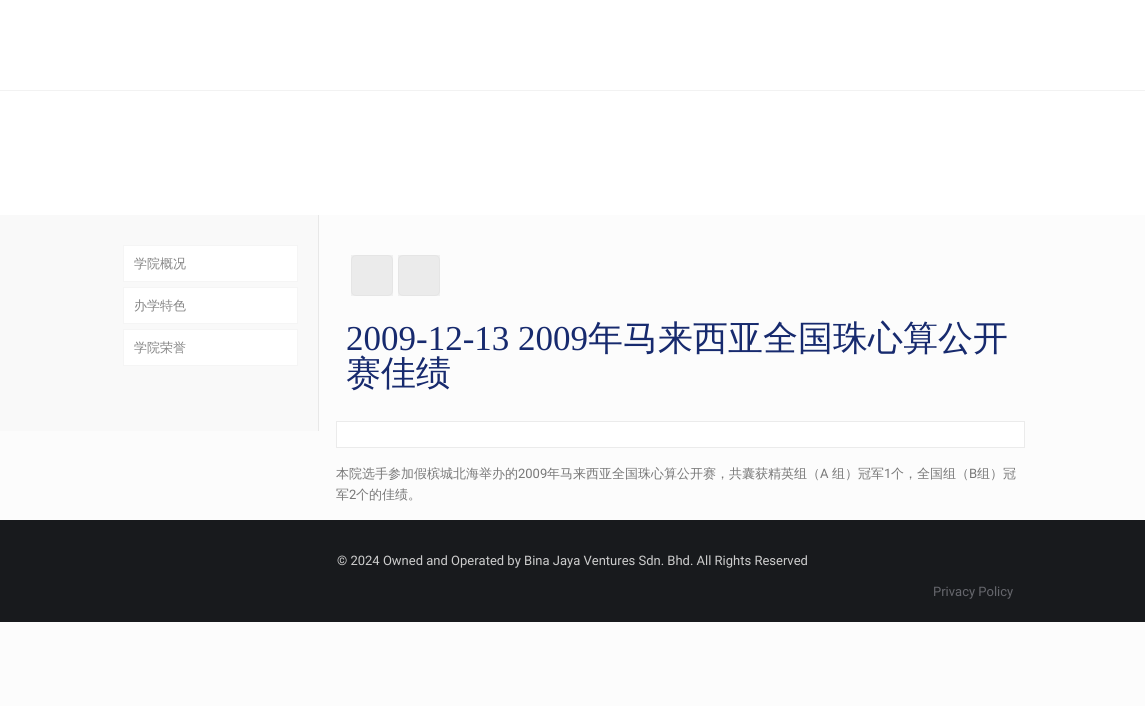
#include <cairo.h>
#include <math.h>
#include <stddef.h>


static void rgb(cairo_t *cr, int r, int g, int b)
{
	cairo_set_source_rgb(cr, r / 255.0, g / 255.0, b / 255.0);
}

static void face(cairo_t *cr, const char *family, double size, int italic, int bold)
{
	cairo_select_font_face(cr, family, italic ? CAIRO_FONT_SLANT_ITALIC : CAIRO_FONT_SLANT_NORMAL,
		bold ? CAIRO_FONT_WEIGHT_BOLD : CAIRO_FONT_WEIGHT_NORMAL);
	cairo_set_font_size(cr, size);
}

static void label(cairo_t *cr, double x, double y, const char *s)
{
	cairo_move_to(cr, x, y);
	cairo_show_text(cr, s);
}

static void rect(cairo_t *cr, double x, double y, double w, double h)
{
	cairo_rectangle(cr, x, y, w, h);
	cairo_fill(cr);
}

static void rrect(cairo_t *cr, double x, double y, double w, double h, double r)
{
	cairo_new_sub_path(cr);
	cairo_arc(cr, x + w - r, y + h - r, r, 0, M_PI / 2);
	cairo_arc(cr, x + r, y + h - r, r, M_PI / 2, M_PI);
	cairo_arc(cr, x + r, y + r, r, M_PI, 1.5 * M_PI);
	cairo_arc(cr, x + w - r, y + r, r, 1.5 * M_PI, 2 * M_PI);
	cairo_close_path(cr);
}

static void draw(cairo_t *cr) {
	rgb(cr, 252, 252, 252);
	cairo_paint(cr);
	rgb(cr, 255, 255, 255);
	rect(cr, 0, 0, 1145, 215);
	rgb(cr, 242, 242, 242);
	rect(cr, 0, 90, 1145, 1);
	rgb(cr, 232, 232, 232);
	rect(cr, 318, 215, 1, 216);
	rgb(cr, 249, 249, 249);
	rect(cr, 0, 215, 318, 216);
	rgb(cr, 255, 255, 255);
	cairo_rectangle(cr, 123.5, 245.5, 174, 36);
	cairo_fill_preserve(cr);
	rgb(cr, 245, 245, 245);
	cairo_set_line_width(cr, 1);
	cairo_stroke(cr);
	face(cr, "WenQuanYi Zen Hei Medium", 13, 0, 0);
	rgb(cr, 133, 133, 133);
	label(cr, 134, 268, "学院概况");
	rgb(cr, 255, 255, 255);
	cairo_rectangle(cr, 123.5, 287.5, 174, 36);
	cairo_fill_preserve(cr);
	rgb(cr, 245, 245, 245);
	cairo_stroke(cr);
	rgb(cr, 133, 133, 133);
	label(cr, 134, 310, "办学特色");
	rgb(cr, 255, 255, 255);
	cairo_rectangle(cr, 123.5, 329.5, 174, 36);
	cairo_fill_preserve(cr);
	rgb(cr, 245, 245, 245);
	cairo_stroke(cr);
	rgb(cr, 133, 133, 133);
	label(cr, 134, 352, "学院荣誉");
	rgb(cr, 247, 247, 247);
	rrect(cr, 351.5, 255.5, 41, 40, 4.5);
	cairo_fill_preserve(cr);
	rgb(cr, 240, 240, 240);
	cairo_stroke(cr);
	cairo_set_source_rgba(cr, 0, 0, 0, 0.05);
	rect(cr, 351, 255, 42, 41);
	rgb(cr, 247, 247, 247);
	rrect(cr, 398.5, 255.5, 41, 40, 4.5);
	cairo_fill_preserve(cr);
	rgb(cr, 240, 240, 240);
	cairo_stroke(cr);
	cairo_set_source_rgba(cr, 0, 0, 0, 0.05);
	rect(cr, 398, 255, 42, 41);
	face(cr, "Liberation Serif", 35, 0, 0);
	rgb(cr, 23, 42, 110);
	label(cr, 346, 350, "2009-12-13 2009");
	face(cr, "WenQuanYi Zen Hei Medium", 35, 0, 0);
	label(cr, 588, 350, "年马来西亚全国珠心算公开");
	label(cr, 346, 385, "赛佳绩");
	rgb(cr, 255, 255, 255);
	cairo_rectangle(cr, 336.5, 421.5, 688, 26);
	cairo_fill_preserve(cr);
	rgb(cr, 235, 235, 235);
	cairo_stroke(cr);
	face(cr, "WenQuanYi Zen Hei Medium", 13, 0, 0);
	rgb(cr, 120, 120, 120);
	label(cr, 336, 478, "本院选手参加假槟城北海举办的");
	face(cr, "Roboto", 13, 0, 0);
	label(cr, 518, 478, "2009");
	face(cr, "WenQuanYi Zen Hei Medium", 13, 0, 0);
	label(cr, 547, 478, "年马来西亚全国珠心算公开赛，共囊获精英组（");
	face(cr, "Roboto", 13, 0, 0);
	label(cr, 820, 478, "A");
	face(cr, "WenQuanYi Zen Hei Medium", 13, 0, 0);
	label(cr, 832, 478, "组）冠军");
	face(cr, "Roboto", 13, 0, 0);
	label(cr, 884, 478, "1");
	face(cr, "WenQuanYi Zen Hei Medium", 13, 0, 0);
	label(cr, 891, 478, "个，全国组（");
	face(cr, "Roboto", 13, 0, 0);
	label(cr, 969, 478, "B");
	face(cr, "WenQuanYi Zen Hei Medium", 13, 0, 0);
	label(cr, 977, 478, "组）冠");
	label(cr, 336, 499, "军");
	face(cr, "Roboto", 13, 0, 0);
	label(cr, 349, 499, "2");
	face(cr, "WenQuanYi Zen Hei Medium", 13, 0, 0);
	label(cr, 356, 499, "个的佳绩。");
	rgb(cr, 24, 26, 29);
	rect(cr, 0, 520, 1145, 102);
	face(cr, "Roboto", 13, 0, 0);
	rgb(cr, 204, 204, 204);
	label(cr, 337, 565, "© 2024 Owned and Operated by Bina Jaya Ventures Sdn. Bhd. All Rights Reserved");
	rgb(cr, 101, 102, 108);
	label(cr, 933, 596, "Privacy Policy");
}

int main(void) {
	cairo_surface_t *surface = cairo_image_surface_create(CAIRO_FORMAT_RGB24, 1145, 706);
	cairo_t *cr = cairo_create(surface);
	cairo_font_options_t *options = cairo_font_options_create();
	cairo_font_options_set_hint_metrics(options, CAIRO_HINT_METRICS_OFF);
	cairo_font_options_set_hint_style(options, CAIRO_HINT_STYLE_NONE);
	cairo_set_font_options(cr, options);
	cairo_set_miter_limit(cr, 4);
	draw(cr);
	cairo_surface_write_to_png(surface, "render.png");
	cairo_font_options_destroy(options);
	cairo_destroy(cr);
	cairo_surface_destroy(surface);
	return 0;
}
